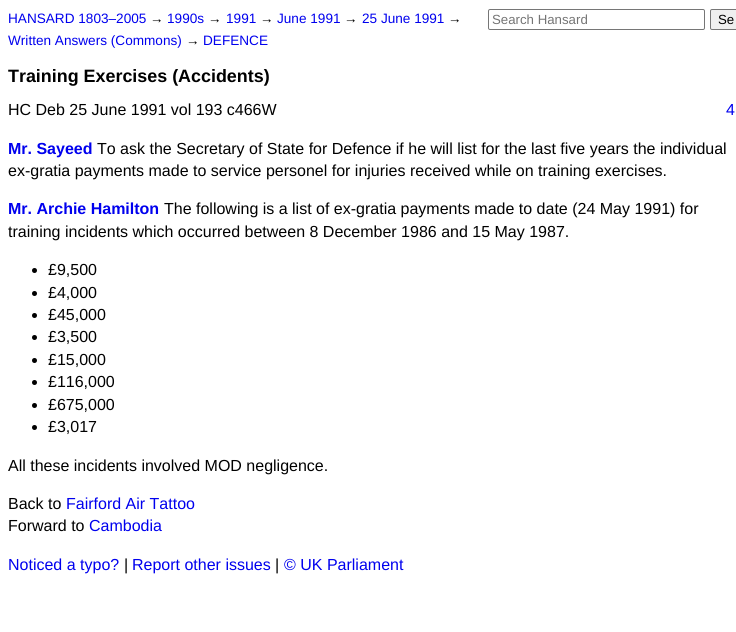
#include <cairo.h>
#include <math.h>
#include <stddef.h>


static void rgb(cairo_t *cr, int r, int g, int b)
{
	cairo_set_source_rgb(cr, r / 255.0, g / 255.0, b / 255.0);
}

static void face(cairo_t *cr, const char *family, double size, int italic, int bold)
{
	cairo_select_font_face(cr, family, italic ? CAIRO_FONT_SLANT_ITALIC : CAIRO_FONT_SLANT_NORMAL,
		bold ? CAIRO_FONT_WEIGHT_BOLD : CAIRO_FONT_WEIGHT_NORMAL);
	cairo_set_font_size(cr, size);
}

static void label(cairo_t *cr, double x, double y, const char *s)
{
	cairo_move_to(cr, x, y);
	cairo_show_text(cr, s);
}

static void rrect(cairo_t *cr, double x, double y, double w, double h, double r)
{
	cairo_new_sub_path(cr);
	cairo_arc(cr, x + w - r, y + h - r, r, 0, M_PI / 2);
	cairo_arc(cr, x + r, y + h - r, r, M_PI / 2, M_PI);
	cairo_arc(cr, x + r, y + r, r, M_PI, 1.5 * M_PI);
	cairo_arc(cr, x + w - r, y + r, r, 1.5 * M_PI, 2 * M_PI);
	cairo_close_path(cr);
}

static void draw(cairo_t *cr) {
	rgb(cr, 255, 255, 255);
	cairo_paint(cr);
	face(cr, "Liberation Sans", 13.6, 0, 0);
	rgb(cr, 0, 0, 238);
	label(cr, 8, 23, "HANSARD 1803–2005");
	rgb(cr, 0, 0, 0);
	label(cr, 150, 23, "→");
	rgb(cr, 0, 0, 238);
	label(cr, 167, 23, "1990s");
	rgb(cr, 0, 0, 0);
	label(cr, 208, 23, "→");
	rgb(cr, 0, 0, 238);
	label(cr, 226, 23, "1991");
	rgb(cr, 0, 0, 0);
	label(cr, 260, 23, "→");
	rgb(cr, 0, 0, 238);
	label(cr, 277, 23, "June 1991");
	rgb(cr, 0, 0, 0);
	label(cr, 344, 23, "→");
	rgb(cr, 0, 0, 238);
	label(cr, 362, 23, "25 June 1991");
	rgb(cr, 0, 0, 0);
	label(cr, 448, 23, "→");
	rgb(cr, 0, 0, 238);
	label(cr, 8, 45, "Written Answers (Commons)");
	rgb(cr, 0, 0, 0);
	label(cr, 186, 45, "→");
	rgb(cr, 0, 0, 238);
	label(cr, 203, 45, "DEFENCE");
	rrect(cr, 488.5, 9.5, 216, 20, 1.5);
	rgb(cr, 118, 118, 118);
	cairo_set_line_width(cr, 1);
	cairo_stroke(cr);
	face(cr, "Liberation Sans", 13.25, 0, 0);
	rgb(cr, 117, 117, 117);
	label(cr, 492, 24, "Search Hansard");
	rgb(cr, 239, 239, 239);
	rrect(cr, 710.5, 9.5, 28, 20, 1.5);
	cairo_fill_preserve(cr);
	rgb(cr, 118, 118, 118);
	cairo_stroke(cr);
	rgb(cr, 0, 0, 0);
	label(cr, 718, 24, "Se");
	face(cr, "Liberation Sans", 17.9, 0, 1);
	label(cr, 8, 82, "Training Exercises (Accidents)");
	face(cr, "Liberation Sans", 16, 0, 0);
	label(cr, 8, 115, "HC Deb 25 June 1991 vol 193 c466W");
	rgb(cr, 0, 0, 238);
	label(cr, 726, 115, "4");
	face(cr, "Liberation Sans", 16, 0, 1);
	label(cr, 8, 154, "Mr. Sayeed");
	face(cr, "Liberation Sans", 16, 0, 0);
	rgb(cr, 0, 0, 0);
	label(cr, 97, 154, "To ask the Secretary of State for Defence if he will list for the last five years the individual");
	label(cr, 8, 176, "ex-gratia payments made to service personel for injuries received while on training exercises.");
	face(cr, "Liberation Sans", 16, 0, 1);
	rgb(cr, 0, 0, 238);
	label(cr, 8, 214, "Mr. Archie Hamilton");
	face(cr, "Liberation Sans", 16, 0, 0);
	rgb(cr, 0, 0, 0);
	label(cr, 164, 214, "The following is a list of ex-gratia payments made to date (24 May 1991) for");
	label(cr, 8, 237, "training incidents which occurred between 8 December 1986 and 15 May 1987.");
	cairo_new_path(cr);
	cairo_arc(cr, 34.5, 270.5, 2.5, 0, 2 * M_PI);
	cairo_fill(cr);
	label(cr, 48, 275, "£9,500");
	cairo_new_path(cr);
	cairo_arc(cr, 34.5, 293.5, 2.5, 0, 2 * M_PI);
	cairo_fill(cr);
	label(cr, 48, 298, "£4,000");
	cairo_new_path(cr);
	cairo_arc(cr, 34.5, 315.5, 2.5, 0, 2 * M_PI);
	cairo_fill(cr);
	label(cr, 48, 320, "£45,000");
	cairo_new_path(cr);
	cairo_arc(cr, 34.5, 337.5, 2.5, 0, 2 * M_PI);
	cairo_fill(cr);
	label(cr, 48, 342, "£3,500");
	cairo_new_path(cr);
	cairo_arc(cr, 34.5, 360.5, 2.5, 0, 2 * M_PI);
	cairo_fill(cr);
	label(cr, 48, 365, "£15,000");
	cairo_new_path(cr);
	cairo_arc(cr, 34.5, 382.5, 2.5, 0, 2 * M_PI);
	cairo_fill(cr);
	label(cr, 48, 387, "£116,000");
	cairo_new_path(cr);
	cairo_arc(cr, 34.5, 405.5, 2.5, 0, 2 * M_PI);
	cairo_fill(cr);
	label(cr, 48, 410, "£675,000");
	cairo_new_path(cr);
	cairo_arc(cr, 34.5, 427.5, 2.5, 0, 2 * M_PI);
	cairo_fill(cr);
	label(cr, 48, 432, "£3,017");
	label(cr, 8, 471, "All these incidents involved MOD negligence.");
	label(cr, 8, 509, "Back to");
	rgb(cr, 0, 0, 238);
	label(cr, 66, 509, "Fairford Air Tattoo");
	rgb(cr, 0, 0, 0);
	label(cr, 8, 531, "Forward to");
	rgb(cr, 0, 0, 238);
	label(cr, 89, 531, "Cambodia");
	label(cr, 8, 570, "Noticed a typo?");
	rgb(cr, 0, 0, 0);
	label(cr, 124, 570, "|");
	rgb(cr, 0, 0, 238);
	label(cr, 132, 570, "Report other issues");
	rgb(cr, 0, 0, 0);
	label(cr, 275, 570, "|");
	rgb(cr, 0, 0, 238);
	label(cr, 284, 570, "© UK Parliament");
}

int main(void) {
	cairo_surface_t *surface = cairo_image_surface_create(CAIRO_FORMAT_RGB24, 736, 632);
	cairo_t *cr = cairo_create(surface);
	cairo_font_options_t *options = cairo_font_options_create();
	cairo_font_options_set_hint_metrics(options, CAIRO_HINT_METRICS_OFF);
	cairo_font_options_set_hint_style(options, CAIRO_HINT_STYLE_NONE);
	cairo_set_font_options(cr, options);
	cairo_set_miter_limit(cr, 4);
	draw(cr);
	cairo_surface_write_to_png(surface, "render.png");
	cairo_font_options_destroy(options);
	cairo_destroy(cr);
	cairo_surface_destroy(surface);
	return 0;
}
